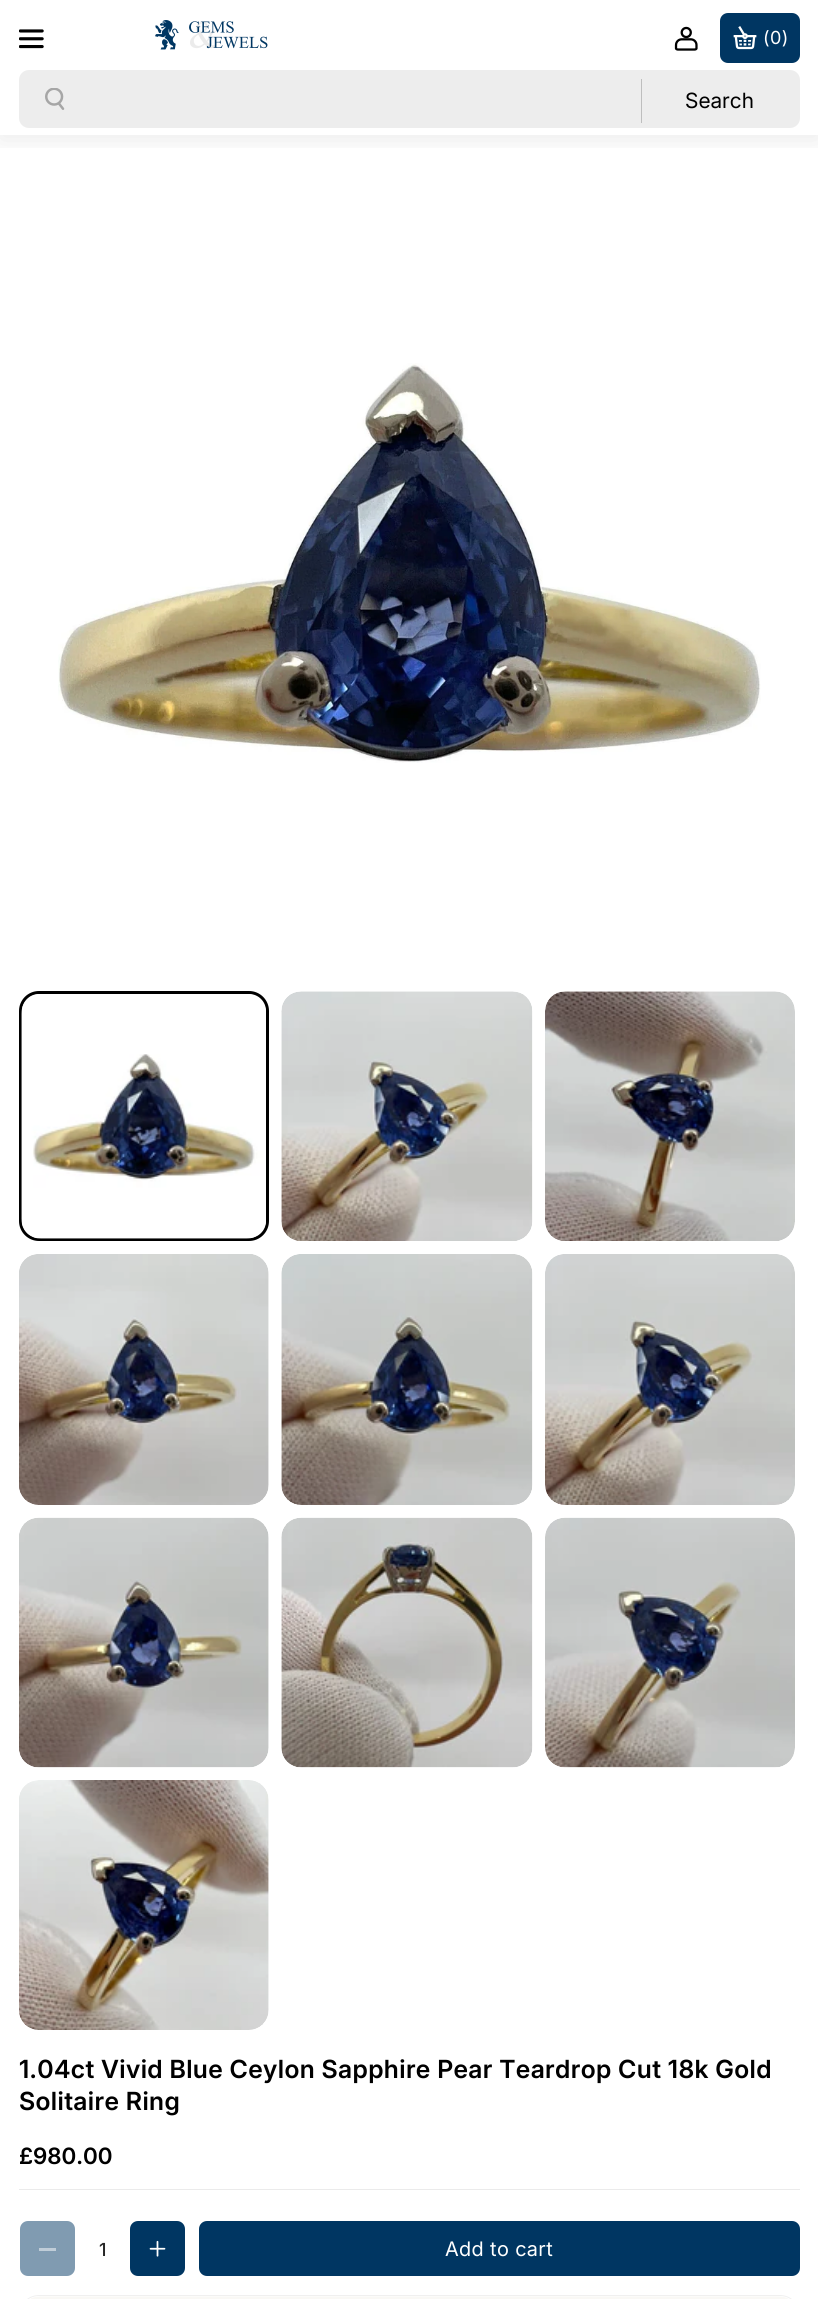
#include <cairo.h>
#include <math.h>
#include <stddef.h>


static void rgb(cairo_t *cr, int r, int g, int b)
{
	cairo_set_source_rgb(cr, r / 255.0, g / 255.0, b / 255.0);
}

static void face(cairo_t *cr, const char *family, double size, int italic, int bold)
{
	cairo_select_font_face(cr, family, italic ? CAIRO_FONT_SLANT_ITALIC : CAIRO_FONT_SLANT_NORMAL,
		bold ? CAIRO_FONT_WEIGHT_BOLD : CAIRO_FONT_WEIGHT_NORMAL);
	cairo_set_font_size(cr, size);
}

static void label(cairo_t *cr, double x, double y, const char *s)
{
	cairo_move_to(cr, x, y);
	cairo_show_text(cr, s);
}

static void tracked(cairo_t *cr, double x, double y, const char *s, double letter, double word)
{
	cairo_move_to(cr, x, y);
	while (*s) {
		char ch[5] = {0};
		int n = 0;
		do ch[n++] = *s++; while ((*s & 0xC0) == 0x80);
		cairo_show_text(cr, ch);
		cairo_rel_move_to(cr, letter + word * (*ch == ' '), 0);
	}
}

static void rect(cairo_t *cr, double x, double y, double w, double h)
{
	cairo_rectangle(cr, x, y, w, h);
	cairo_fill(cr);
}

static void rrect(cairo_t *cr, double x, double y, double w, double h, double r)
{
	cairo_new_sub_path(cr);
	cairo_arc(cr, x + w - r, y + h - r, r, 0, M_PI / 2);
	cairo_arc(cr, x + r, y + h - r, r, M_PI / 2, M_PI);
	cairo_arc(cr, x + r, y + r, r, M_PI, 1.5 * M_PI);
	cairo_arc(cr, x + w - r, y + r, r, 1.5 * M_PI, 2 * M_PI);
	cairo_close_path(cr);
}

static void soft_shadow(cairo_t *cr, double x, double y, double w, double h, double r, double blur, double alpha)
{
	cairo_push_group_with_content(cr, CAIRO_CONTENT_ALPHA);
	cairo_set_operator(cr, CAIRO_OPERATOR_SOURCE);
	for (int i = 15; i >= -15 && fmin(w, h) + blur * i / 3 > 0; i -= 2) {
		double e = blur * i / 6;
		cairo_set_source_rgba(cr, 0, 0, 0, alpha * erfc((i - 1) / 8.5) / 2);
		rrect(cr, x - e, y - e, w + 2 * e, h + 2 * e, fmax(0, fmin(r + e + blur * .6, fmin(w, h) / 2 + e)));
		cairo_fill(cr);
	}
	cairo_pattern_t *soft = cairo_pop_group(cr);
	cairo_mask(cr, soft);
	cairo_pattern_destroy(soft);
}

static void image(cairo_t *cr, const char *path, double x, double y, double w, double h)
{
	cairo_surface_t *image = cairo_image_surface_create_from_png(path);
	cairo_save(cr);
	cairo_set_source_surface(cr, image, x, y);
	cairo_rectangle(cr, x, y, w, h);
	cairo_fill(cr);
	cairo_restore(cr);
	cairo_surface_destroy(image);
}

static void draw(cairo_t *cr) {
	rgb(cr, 255, 255, 255);
	cairo_paint(cr);
	cairo_save(cr);
	cairo_rectangle(cr, 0, 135, 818, 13);
	cairo_clip(cr);
	rgb(cr, 0, 0, 0);
	soft_shadow(cr, 0, 5, 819, 135, 0, 12.5, 0.08);
	cairo_restore(cr);
	image(cr, "image0.png", 19, 29, 25, 20);
	image(cr, "image1.png", 155, 20, 113, 30);
	image(cr, "image2.png", 674, 26, 24, 25);
	rgb(cr, 0, 54, 98);
	rrect(cr, 720, 13, 80, 50, 8);
	cairo_fill(cr);
	image(cr, "image3.png", 733, 26, 24, 24);
	face(cr, "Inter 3", 18, 0, 0);
	rgb(cr, 255, 255, 255);
	tracked(cr, 763, 44, "(0)", 0.38, 0);
	rgb(cr, 237, 237, 237);
	rrect(cr, 19, 70, 781, 58, 10);
	cairo_fill(cr);
	image(cr, "image4.png", 45, 88, 20, 22);
	rgb(cr, 190, 190, 190);
	rect(cr, 641, 79, 1, 44);
	face(cr, "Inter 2", 21, 0, 0);
	rgb(cr, 0, 0, 0);
	label(cr, 685, 108, "Search");
	image(cr, "image5.png", 58, 363, 703, 400);
	rrect(cr, 20.5, 992.5, 247, 247, 18.5);
	cairo_set_line_width(cr, 3);
	cairo_stroke(cr);
	image(cr, "image6.png", 21, 994, 245, 245);
	image(cr, "image7.png", 281, 991, 252, 250);
	image(cr, "image8.png", 545, 991, 250, 250);
	image(cr, "image9.png", 19, 1254, 250, 251);
	image(cr, "image10.png", 281, 1254, 252, 251);
	image(cr, "image11.png", 545, 1254, 250, 251);
	image(cr, "image12.png", 19, 1517, 250, 251);
	image(cr, "image13.png", 281, 1517, 252, 251);
	image(cr, "image14.png", 545, 1517, 250, 251);
	image(cr, "image15.png", 19, 1780, 250, 250);
	face(cr, "Inter SemiBold", 25, 0, 0);
	tracked(cr, 19, 2078, "1.04ct Vivid Blue Ceylon Sapphire Pear Teardrop Cut 18k Gold", 0.38, 0);
	tracked(cr, 19, 2110, "Solitaire Ring", 0.38, 0);
	rgb(cr, 235, 235, 235);
	rect(cr, 19, 2189, 781, 1);
	face(cr, "Inter 2 SemiBold", 22.5, 0, 0);
	rgb(cr, 0, 0, 0);
	label(cr, 19, 2164, "£980.00");
	rgb(cr, 128, 155, 177);
	rrect(cr, 20, 2221, 55, 55, 8);
	cairo_fill(cr);
	rgb(cr, 192, 205, 216);
	rect(cr, 39, 2248, 17, 3);
	face(cr, "Inter Medium", 18, 0, 0);
	rgb(cr, 38, 38, 38);
	label(cr, 99, 2256, "1");
	rgb(cr, 0, 54, 98);
	rrect(cr, 130, 2221, 55, 55, 8);
	cairo_fill(cr);
	image(cr, "image16.png", 149, 2240, 17, 17);
	rrect(cr, 199, 2221, 601, 55, 8);
	cairo_fill(cr);
	face(cr, "Inter", 20, 0, 0);
	rgb(cr, 255, 255, 255);
	tracked(cr, 445, 2256, "Add to cart", 0.38, 0);
	rrect(cr, 19.5, 2295.5, 780, 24, 19.5);
	rgb(cr, 240, 240, 240);
	cairo_set_line_width(cr, 1);
	cairo_stroke(cr);
	image(cr, "image17.png", 31, 2296, 757, 3);
}

int main(void) {
	cairo_surface_t *surface = cairo_image_surface_create(CAIRO_FORMAT_RGB24, 818, 2299);
	cairo_t *cr = cairo_create(surface);
	cairo_font_options_t *options = cairo_font_options_create();
	cairo_font_options_set_hint_metrics(options, CAIRO_HINT_METRICS_OFF);
	cairo_font_options_set_hint_style(options, CAIRO_HINT_STYLE_NONE);
	cairo_set_font_options(cr, options);
	cairo_set_miter_limit(cr, 4);
	draw(cr);
	cairo_surface_write_to_png(surface, "render.png");
	cairo_font_options_destroy(options);
	cairo_destroy(cr);
	cairo_surface_destroy(surface);
	return 0;
}
